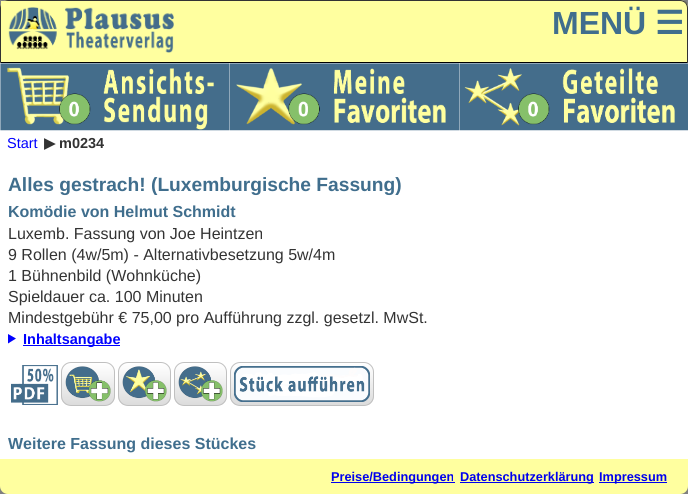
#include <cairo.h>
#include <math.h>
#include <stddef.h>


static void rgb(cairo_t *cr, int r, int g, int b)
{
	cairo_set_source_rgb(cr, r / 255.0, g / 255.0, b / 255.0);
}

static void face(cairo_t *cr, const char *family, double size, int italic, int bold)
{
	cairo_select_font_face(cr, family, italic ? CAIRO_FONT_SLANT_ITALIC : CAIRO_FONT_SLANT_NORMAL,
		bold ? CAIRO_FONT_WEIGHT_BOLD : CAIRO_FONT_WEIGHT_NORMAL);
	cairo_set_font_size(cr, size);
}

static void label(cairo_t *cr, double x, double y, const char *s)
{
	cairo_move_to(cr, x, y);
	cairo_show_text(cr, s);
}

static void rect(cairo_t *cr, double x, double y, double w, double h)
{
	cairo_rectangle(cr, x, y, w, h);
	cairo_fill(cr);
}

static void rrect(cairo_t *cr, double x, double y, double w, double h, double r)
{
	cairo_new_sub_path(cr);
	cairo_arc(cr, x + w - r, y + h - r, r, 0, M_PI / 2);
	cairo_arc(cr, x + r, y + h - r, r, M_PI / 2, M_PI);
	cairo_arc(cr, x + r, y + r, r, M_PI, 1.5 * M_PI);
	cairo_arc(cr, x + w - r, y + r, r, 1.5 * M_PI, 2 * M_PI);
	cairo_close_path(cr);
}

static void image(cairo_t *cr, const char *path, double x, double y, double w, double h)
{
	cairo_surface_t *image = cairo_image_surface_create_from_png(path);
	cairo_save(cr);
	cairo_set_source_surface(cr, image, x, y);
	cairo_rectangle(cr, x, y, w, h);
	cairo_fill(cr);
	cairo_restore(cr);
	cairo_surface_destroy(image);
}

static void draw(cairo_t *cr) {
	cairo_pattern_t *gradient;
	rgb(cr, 128, 128, 128);
	cairo_paint(cr);
	rgb(cr, 255, 255, 159);
	cairo_new_path(cr);
	cairo_move_to(cr, 8, 0);
	cairo_line_to(cr, 680, 0);
	cairo_curve_to(cr, 684.5, 0, 688, 3.5, 688, 8);
	cairo_line_to(cr, 688, 63);
	cairo_line_to(cr, 0, 63);
	cairo_line_to(cr, 0, 8);
	cairo_curve_to(cr, 0, 3.5, 3.5, 0, 8, 0);
	cairo_close_path(cr);
	cairo_fill(cr);
	rgb(cr, 51, 51, 51);
	cairo_new_path(cr);
	cairo_move_to(cr, 8, 0);
	cairo_curve_to(cr, 6, 0, 4, 1, 2, 2);
	cairo_line_to(cr, 3, 3);
	cairo_curve_to(cr, 4, 2, 6, 1, 8, 1);
	cairo_line_to(cr, 680, 1);
	cairo_curve_to(cr, 682, 1, 684, 2, 685, 3);
	cairo_line_to(cr, 686, 2);
	cairo_curve_to(cr, 684, 1, 682, 0, 680, 0);
	cairo_close_path(cr);
	cairo_fill(cr);
	cairo_new_path(cr);
	cairo_move_to(cr, 688, 63);
	cairo_line_to(cr, 688, 8);
	cairo_curve_to(cr, 688, 6, 687, 4, 686, 2);
	cairo_line_to(cr, 685, 3);
	cairo_curve_to(cr, 686, 4, 687, 6, 687, 8);
	cairo_line_to(cr, 687, 62);
	cairo_close_path(cr);
	cairo_fill(cr);
	rgb(cr, 0, 0, 0);
	cairo_new_path(cr);
	cairo_move_to(cr, 688, 63);
	cairo_line_to(cr, 687, 62);
	cairo_line_to(cr, 1, 62);
	cairo_line_to(cr, 0, 63);
	cairo_close_path(cr);
	cairo_fill(cr);
	rgb(cr, 51, 51, 51);
	cairo_new_path(cr);
	cairo_move_to(cr, 0, 63);
	cairo_line_to(cr, 1, 62);
	cairo_line_to(cr, 1, 8);
	cairo_curve_to(cr, 1, 6, 2, 4, 3, 3);
	cairo_line_to(cr, 2, 2);
	cairo_curve_to(cr, 1, 4, 0, 6, 0, 8);
	cairo_close_path(cr);
	cairo_fill(cr);
	rgb(cr, 255, 255, 159);
	rect(cr, 1, 1, 7, 7);
	image(cr, "image0.png", 8, 7, 166, 46);
	face(cr, "Liberation Sans", 32, 0, 1);
	rgb(cr, 64, 110, 141);
	label(cr, 552, 34, "MENÜ");
	face(cr, "DejaVu Sans", 32, 0, 1);
	label(cr, 655, 34, "☰");
	image(cr, "image1.png", 0, 63, 229, 68);
	image(cr, "image2.png", 229, 63, 230, 68);
	image(cr, "image3.png", 459, 63, 229, 68);
	rgb(cr, 255, 255, 255);
	rect(cr, 0, 131, 688, 328);
	face(cr, "Liberation Sans", 14.5, 0, 0);
	rgb(cr, 0, 0, 255);
	label(cr, 7, 148, "Start");
	face(cr, "DejaVu Sans", 14.5, 0, 1);
	rgb(cr, 51, 51, 51);
	label(cr, 44, 148, "▶");
	face(cr, "Liberation Sans", 14.5, 0, 1);
	label(cr, 59, 148, "m0234");
	face(cr, "Liberation Sans", 19.2, 0, 1);
	rgb(cr, 64, 110, 141);
	label(cr, 8, 191, "Alles gestrach! (Luxemburgische Fassung)");
	face(cr, "Liberation Sans", 16, 0, 1);
	label(cr, 8, 217, "Komödie von Helmut Schmidt");
	face(cr, "Liberation Sans", 16, 0, 0);
	rgb(cr, 51, 51, 51);
	label(cr, 8, 239, "Luxemb. Fassung von Joe Heintzen");
	label(cr, 8, 260, "9 Rollen (4w/5m) - Alternativbesetzung 5w/4m");
	label(cr, 8, 281, "1 Bühnenbild (Wohnküche)");
	label(cr, 8, 302, "Spieldauer ca. 100 Minuten");
	label(cr, 8, 323, "Mindestgebühr € 75,00 pro Aufführung zzgl. gesetzl. MwSt.");
	rgb(cr, 0, 0, 255);
	cairo_new_path(cr);
	cairo_move_to(cr, 8, 334);
	cairo_line_to(cr, 16, 338.5);
	cairo_line_to(cr, 8, 343.5);
	cairo_close_path(cr);
	cairo_fill(cr);
	rect(cr, 23, 345, 97, 1);
	face(cr, "Liberation Sans", 14.5, 0, 1);
	label(cr, 23, 344, "Inhaltsangabe");
	image(cr, "image4.png", 11, 365, 47, 40);
	cairo_save(cr);
	rrect(cr, 61, 362, 54, 44, 10);
	cairo_clip(cr);
	gradient = cairo_pattern_create_linear(88, 405, 88, 363);
	cairo_pattern_add_color_stop_rgba(gradient, 0, 0.863, 0.863, 0.863, 1);
	cairo_pattern_add_color_stop_rgba(gradient, 0.99, 1, 1, 1, 1);
	cairo_set_source(cr, gradient);
	cairo_pattern_destroy(gradient);
	rect(cr, 61, 363, 54, 42);
	cairo_restore(cr);
	rrect(cr, 61.5, 362.5, 53, 43, 9.5);
	rgb(cr, 192, 192, 192);
	cairo_set_line_width(cr, 1);
	cairo_stroke(cr);
	image(cr, "image5.png", 65, 366, 46, 36);
	cairo_save(cr);
	rrect(cr, 118, 362, 53, 44, 10);
	cairo_clip(cr);
	gradient = cairo_pattern_create_linear(145, 405, 145, 363);
	cairo_pattern_add_color_stop_rgba(gradient, 0, 0.863, 0.863, 0.863, 1);
	cairo_pattern_add_color_stop_rgba(gradient, 0.99, 1, 1, 1, 1);
	cairo_set_source(cr, gradient);
	cairo_pattern_destroy(gradient);
	rect(cr, 118, 363, 53, 42);
	cairo_restore(cr);
	rrect(cr, 118.5, 362.5, 52, 43, 9.5);
	cairo_stroke(cr);
	image(cr, "image6.png", 122, 366, 45, 36);
	cairo_save(cr);
	rrect(cr, 174, 362, 53, 44, 10);
	cairo_clip(cr);
	gradient = cairo_pattern_create_linear(201, 405, 201, 363);
	cairo_pattern_add_color_stop_rgba(gradient, 0, 0.863, 0.863, 0.863, 1);
	cairo_pattern_add_color_stop_rgba(gradient, 0.99, 1, 1, 1, 1);
	cairo_set_source(cr, gradient);
	cairo_pattern_destroy(gradient);
	rect(cr, 174, 363, 53, 42);
	cairo_restore(cr);
	rrect(cr, 174.5, 362.5, 52, 43, 9.5);
	cairo_stroke(cr);
	image(cr, "image7.png", 178, 366, 45, 36);
	cairo_save(cr);
	rrect(cr, 230, 362, 144, 44, 10);
	cairo_clip(cr);
	gradient = cairo_pattern_create_linear(302, 405, 302, 363);
	cairo_pattern_add_color_stop_rgba(gradient, 0, 0.863, 0.863, 0.863, 1);
	cairo_pattern_add_color_stop_rgba(gradient, 0.99, 1, 1, 1, 1);
	cairo_set_source(cr, gradient);
	cairo_pattern_destroy(gradient);
	rect(cr, 230, 363, 144, 42);
	cairo_restore(cr);
	rrect(cr, 230.5, 362.5, 143, 43, 9.5);
	cairo_stroke(cr);
	image(cr, "image8.png", 234, 366, 136, 36);
	face(cr, "Liberation Sans", 16, 0, 1);
	rgb(cr, 64, 110, 141);
	label(cr, 8, 449, "Weitere Fassung dieses Stückes");
	rgb(cr, 255, 255, 159);
	cairo_new_path(cr);
	cairo_move_to(cr, 0, 459);
	cairo_line_to(cr, 688, 459);
	cairo_line_to(cr, 688, 486);
	cairo_curve_to(cr, 688, 490.5, 684.5, 494, 680, 494);
	cairo_line_to(cr, 8, 494);
	cairo_curve_to(cr, 3.5, 494, 0, 490.5, 0, 486);
	cairo_close_path(cr);
	cairo_fill(cr);
	rgb(cr, 0, 0, 238);
	rect(cr, 331, 482, 124, 1);
	face(cr, "Liberation Sans", 12.75, 0, 1);
	label(cr, 331, 481, "Preise/Bedingungen");
	rect(cr, 460, 482, 134, 1);
	label(cr, 460, 481, "Datenschutzerklärung");
	rect(cr, 599, 482, 68, 1);
	label(cr, 599, 481, "Impressum");
}

int main(void) {
	cairo_surface_t *surface = cairo_image_surface_create(CAIRO_FORMAT_RGB24, 688, 494);
	cairo_t *cr = cairo_create(surface);
	cairo_font_options_t *options = cairo_font_options_create();
	cairo_font_options_set_hint_metrics(options, CAIRO_HINT_METRICS_OFF);
	cairo_font_options_set_hint_style(options, CAIRO_HINT_STYLE_NONE);
	cairo_set_font_options(cr, options);
	cairo_set_miter_limit(cr, 4);
	draw(cr);
	cairo_surface_write_to_png(surface, "render.png");
	cairo_font_options_destroy(options);
	cairo_destroy(cr);
	cairo_surface_destroy(surface);
	return 0;
}
